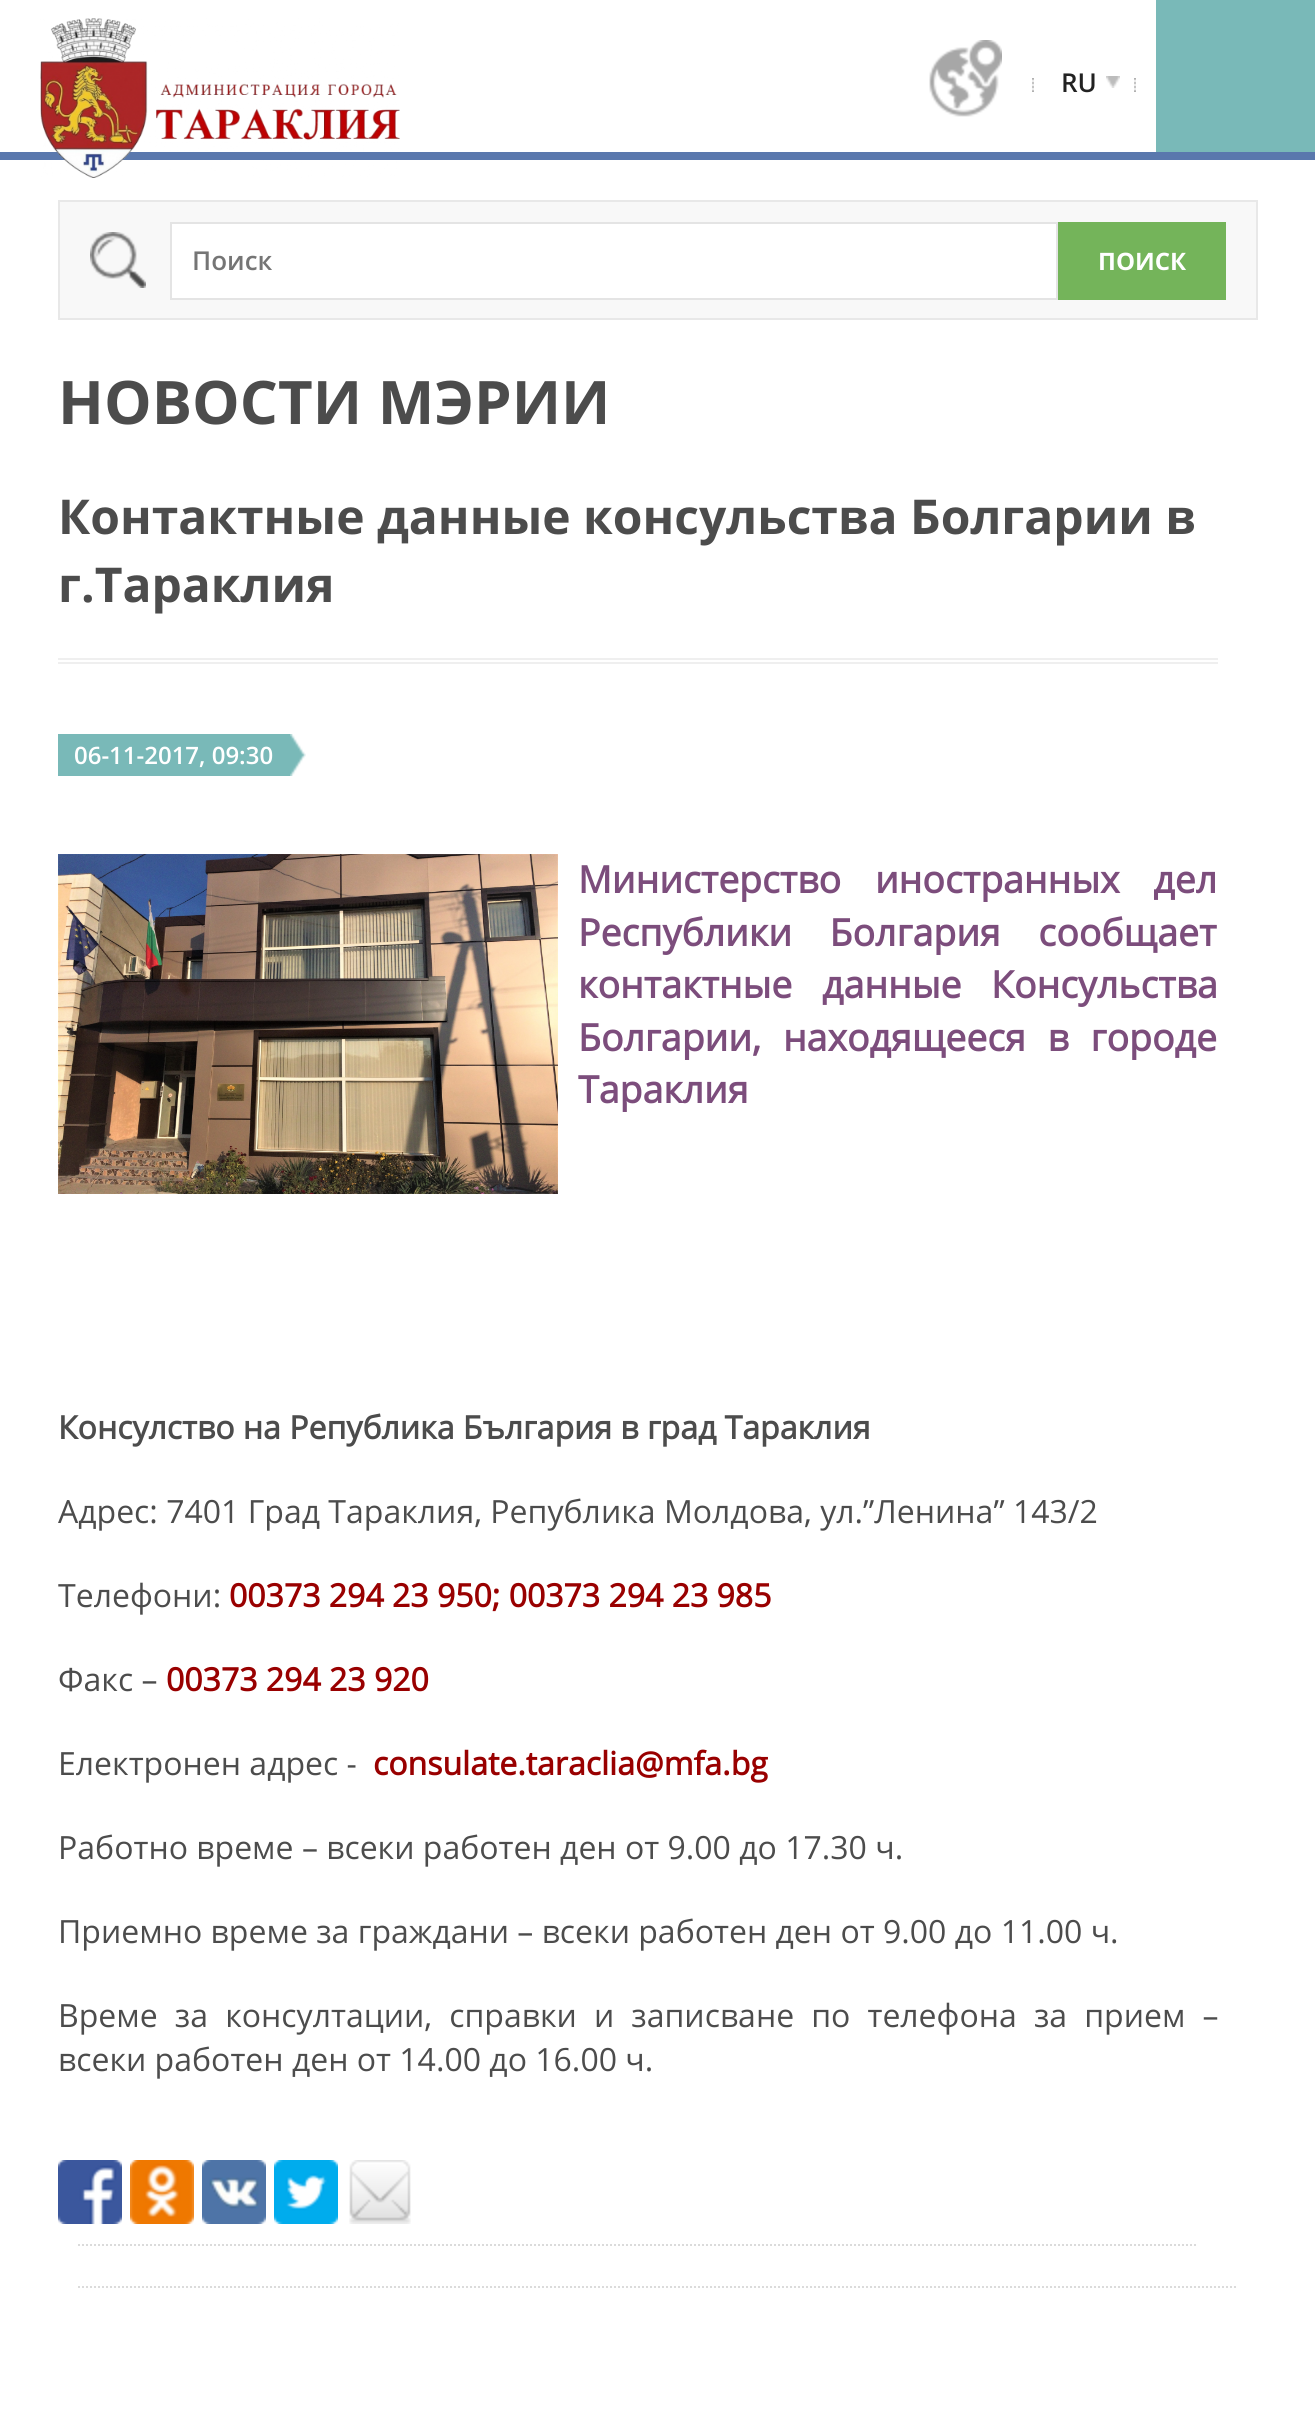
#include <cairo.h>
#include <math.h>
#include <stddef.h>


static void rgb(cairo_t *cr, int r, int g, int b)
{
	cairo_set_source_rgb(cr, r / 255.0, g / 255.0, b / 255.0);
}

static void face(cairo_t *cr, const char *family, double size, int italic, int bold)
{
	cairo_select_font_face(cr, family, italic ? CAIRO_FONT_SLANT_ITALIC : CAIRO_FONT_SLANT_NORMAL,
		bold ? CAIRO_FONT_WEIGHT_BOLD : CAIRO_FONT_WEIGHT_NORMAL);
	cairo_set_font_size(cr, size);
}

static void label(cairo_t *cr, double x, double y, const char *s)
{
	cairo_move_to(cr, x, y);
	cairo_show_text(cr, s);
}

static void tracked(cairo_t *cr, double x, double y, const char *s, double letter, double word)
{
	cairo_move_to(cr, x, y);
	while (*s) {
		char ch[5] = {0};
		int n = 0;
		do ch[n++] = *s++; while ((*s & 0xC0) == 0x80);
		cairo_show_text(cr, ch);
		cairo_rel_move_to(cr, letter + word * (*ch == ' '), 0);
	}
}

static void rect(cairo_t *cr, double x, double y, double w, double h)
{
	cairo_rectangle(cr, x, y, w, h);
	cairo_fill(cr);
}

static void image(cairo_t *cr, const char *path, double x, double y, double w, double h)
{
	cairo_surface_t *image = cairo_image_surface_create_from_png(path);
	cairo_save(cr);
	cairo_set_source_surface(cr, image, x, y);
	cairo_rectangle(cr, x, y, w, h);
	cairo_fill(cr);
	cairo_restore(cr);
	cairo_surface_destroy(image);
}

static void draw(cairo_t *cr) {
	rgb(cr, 255, 255, 255);
	cairo_paint(cr);
	rgb(cr, 90, 120, 173);
	rect(cr, 0, 152, 1315, 8);
	image(cr, "image0.png", 40, 18, 360, 160);
	image(cr, "image1.png", 929, 40, 73, 77);
	image(cr, "image2.png", 1032, 78, 2, 14);
	face(cr, "Open Sans SemiBold", 26, 0, 0);
	rgb(cr, 34, 34, 34);
	label(cr, 1061, 92, "RU");
	image(cr, "image3.png", 1106, 76, 14, 12);
	image(cr, "image2.png", 1134, 78, 2, 14);
	rgb(cr, 121, 185, 184);
	rect(cr, 1156, 0, 159, 152);
	rgb(cr, 248, 248, 248);
	rect(cr, 60, 202, 1196, 116);
	image(cr, "image4.png", 90, 232, 56, 56);
	cairo_rectangle(cr, 59, 201, 1198, 118);
	rgb(cr, 232, 232, 232);
	cairo_stroke(cr);
	rgb(cr, 255, 255, 255);
	cairo_rectangle(cr, 171, 223, 886, 76);
	cairo_fill_preserve(cr);
	rgb(cr, 228, 228, 228);
	cairo_stroke(cr);
	rgb(cr, 117, 117, 117);
	label(cr, 192, 270, "Поиск");
	rgb(cr, 116, 180, 90);
	rect(cr, 1058, 222, 168, 78);
	face(cr, "Open Sans", 24, 0, 1);
	rgb(cr, 255, 255, 255);
	label(cr, 1098, 270, "ПОИСК");
	face(cr, "Open Sans", 60, 0, 1);
	rgb(cr, 76, 76, 76);
	label(cr, 58, 424, "НОВОСТИ МЭРИИ");
	face(cr, "Open Sans", 48, 0, 1);
	label(cr, 58, 534, "Контактные данные консульства Болгарии в");
	label(cr, 58, 602, "г.Тараклия");
	rgb(cr, 239, 239, 239);
	rect(cr, 58, 658, 1160, 2);
	rect(cr, 58, 662, 1160, 2);
	rgb(cr, 121, 185, 184);
	rect(cr, 58, 734, 232, 42);
	face(cr, "Open Sans SemiBold", 24, 0, 0);
	rgb(cr, 255, 255, 255);
	label(cr, 74, 764, "06-11-2017, 09:30");
	image(cr, "image5.png", 290, 734, 16, 42);
	image(cr, "image6.png", 58, 854, 500, 340);
	face(cr, "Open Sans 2", 37.4, 0, 1);
	rgb(cr, 124, 77, 124);
	tracked(cr, 578, 893, "Министерство иностранных дел", 0, 24);
	tracked(cr, 578, 946, "Республики Болгария сообщает", 0, 28);
	tracked(cr, 578, 998, "контактные данные Консульства", 0, 20);
	tracked(cr, 578, 1051, "Болгарии, находящееся в городе", 0, 12);
	label(cr, 578, 1103, "Тараклия");
	face(cr, "Open Sans 2", 32, 0, 1);
	rgb(cr, 76, 76, 76);
	label(cr, 58, 1439, "Консулство на Република България в град Тараклия");
	face(cr, "Open Sans", 32, 0, 0);
	label(cr, 58, 1523, "Адрес: 7401 Град Тараклия, Република Молдова, ул.”Ленина” 143/2");
	label(cr, 58, 1607, "Телефони:");
	face(cr, "Open Sans 2", 32, 0, 1);
	rgb(cr, 153, 0, 0);
	label(cr, 229, 1607, "00373 294 23 950; 00373 294 23 985");
	face(cr, "Open Sans", 32, 0, 0);
	rgb(cr, 76, 76, 76);
	label(cr, 58, 1691, "Факс –");
	face(cr, "Open Sans 2", 32, 0, 1);
	rgb(cr, 153, 0, 0);
	label(cr, 166, 1691, "00373 294 23 920");
	face(cr, "Open Sans", 32, 0, 0);
	rgb(cr, 76, 76, 76);
	label(cr, 58, 1775, "Електронен адрес -");
	face(cr, "Open Sans 2", 32, 0, 1);
	rgb(cr, 153, 0, 0);
	label(cr, 373, 1775, "consulate.taraclia@mfa.bg");
	face(cr, "Open Sans", 32, 0, 0);
	rgb(cr, 76, 76, 76);
	label(cr, 58, 1859, "Работно време – всеки работен ден от 9.00 до 17.30 ч.");
	label(cr, 58, 1943, "Приемно време за граждани – всеки работен ден от 9.00 до 11.00 ч.");
	tracked(cr, 58, 2027, "Време за консултации, справки и записване по телефона за прием –", 0, 8.75);
	label(cr, 58, 2071, "всеки работен ден от 14.00 до 16.00 ч.");
	image(cr, "image7.png", 58, 2160, 64, 64);
	image(cr, "image8.png", 130, 2160, 64, 64);
	image(cr, "image9.png", 202, 2160, 64, 64);
	image(cr, "image10.png", 274, 2160, 64, 64);
	image(cr, "image11.png", 349, 2160, 62, 64);
	cairo_new_path(cr);
	cairo_move_to(cr, 78, 2245);
	cairo_line_to(cr, 1198, 2245);
	rgb(cr, 219, 219, 219);
	cairo_set_dash(cr, (double[]){2, 2}, 2, 0);
	cairo_stroke(cr);
	cairo_new_path(cr);
	cairo_move_to(cr, 78, 2287);
	cairo_line_to(cr, 1238, 2287);
	cairo_stroke(cr);
}

int main(void) {
	cairo_surface_t *surface = cairo_image_surface_create(CAIRO_FORMAT_RGB24, 1315, 2428);
	cairo_t *cr = cairo_create(surface);
	cairo_font_options_t *options = cairo_font_options_create();
	cairo_font_options_set_hint_metrics(options, CAIRO_HINT_METRICS_OFF);
	cairo_font_options_set_hint_style(options, CAIRO_HINT_STYLE_NONE);
	cairo_set_font_options(cr, options);
	cairo_set_miter_limit(cr, 4);
	draw(cr);
	cairo_surface_write_to_png(surface, "render.png");
	cairo_font_options_destroy(options);
	cairo_destroy(cr);
	cairo_surface_destroy(surface);
	return 0;
}
